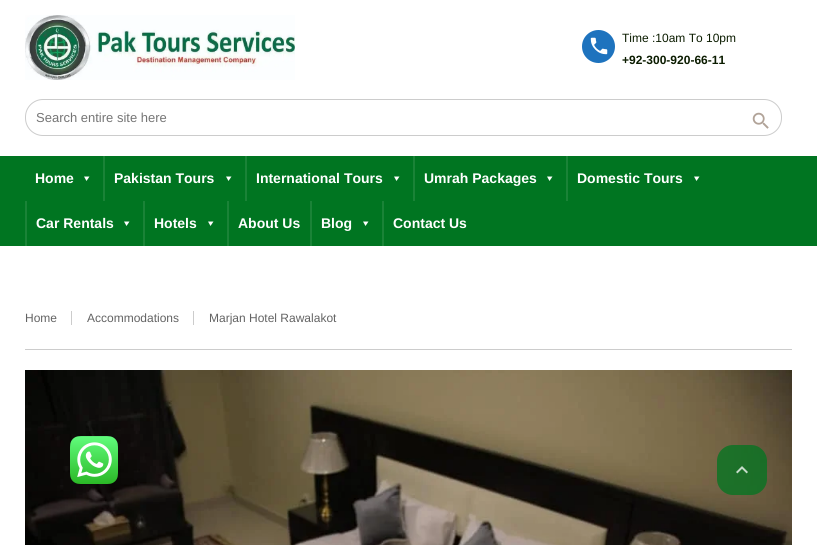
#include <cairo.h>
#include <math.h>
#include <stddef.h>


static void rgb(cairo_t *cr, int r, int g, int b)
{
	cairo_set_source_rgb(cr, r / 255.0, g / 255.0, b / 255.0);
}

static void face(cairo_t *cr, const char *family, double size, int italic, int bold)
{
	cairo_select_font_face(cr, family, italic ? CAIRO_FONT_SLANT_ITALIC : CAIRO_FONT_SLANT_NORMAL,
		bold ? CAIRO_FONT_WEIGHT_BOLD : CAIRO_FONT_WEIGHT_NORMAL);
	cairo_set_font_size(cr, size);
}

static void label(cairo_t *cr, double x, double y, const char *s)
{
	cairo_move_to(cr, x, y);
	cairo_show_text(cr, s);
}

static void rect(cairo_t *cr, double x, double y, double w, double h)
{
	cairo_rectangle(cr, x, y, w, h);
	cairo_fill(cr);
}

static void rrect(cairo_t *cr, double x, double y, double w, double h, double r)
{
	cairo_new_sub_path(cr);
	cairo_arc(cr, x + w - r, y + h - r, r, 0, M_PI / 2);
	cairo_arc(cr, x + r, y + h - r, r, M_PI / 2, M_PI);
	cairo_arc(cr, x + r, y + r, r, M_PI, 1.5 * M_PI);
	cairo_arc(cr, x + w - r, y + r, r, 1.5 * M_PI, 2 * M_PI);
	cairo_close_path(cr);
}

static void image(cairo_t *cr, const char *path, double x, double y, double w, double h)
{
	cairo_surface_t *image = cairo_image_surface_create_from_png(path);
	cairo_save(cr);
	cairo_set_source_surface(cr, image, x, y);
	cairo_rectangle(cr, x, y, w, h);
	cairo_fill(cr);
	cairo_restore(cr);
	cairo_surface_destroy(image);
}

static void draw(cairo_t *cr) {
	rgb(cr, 255, 255, 255);
	cairo_paint(cr);
	image(cr, "image0.png", 25, 15, 270, 65);
	rgb(cr, 30, 115, 190);
	cairo_arc(cr, 598.5, 46.5, 16.5, 0, 2 * M_PI);
	cairo_fill(cr);
	image(cr, "image1.png", 590, 37, 18, 18);
	face(cr, "Liberation Sans", 12, 0, 0);
	rgb(cr, 11, 28, 0);
	label(cr, 622, 42, "Time :10am To 10pm");
	face(cr, "Liberation Sans", 12, 0, 1);
	label(cr, 622, 64, "+92-300-920-66-11");
	rrect(cr, 25.5, 99.5, 756, 36, 17.5);
	rgb(cr, 204, 204, 204);
	cairo_set_line_width(cr, 1);
	cairo_stroke(cr);
	face(cr, "Liberation Sans", 13, 0, 0);
	rgb(cr, 117, 117, 117);
	label(cr, 36, 122, "Search entire site here");
	image(cr, "image2.png", 752, 112, 17, 17);
	rgb(cr, 0, 117, 33);
	rect(cr, 0, 156, 817, 90);
	face(cr, "Liberation Sans", 14, 0, 1);
	rgb(cr, 255, 255, 255);
	label(cr, 35, 183, "Home");
	cairo_new_path(cr);
	cairo_move_to(cr, 89.5, 176.5);
	cairo_line_to(cr, 86.5, 181);
	cairo_line_to(cr, 84, 176.5);
	cairo_close_path(cr);
	cairo_fill(cr);
	rgb(cr, 26, 131, 55);
	rect(cr, 103, 156, 2, 45);
	rgb(cr, 255, 255, 255);
	label(cr, 114, 183, "Pakistan Tours");
	cairo_new_path(cr);
	cairo_move_to(cr, 231.5, 176.5);
	cairo_line_to(cr, 228.5, 181);
	cairo_line_to(cr, 226, 176.5);
	cairo_close_path(cr);
	cairo_fill(cr);
	rgb(cr, 26, 131, 55);
	rect(cr, 245, 156, 2, 45);
	rgb(cr, 255, 255, 255);
	label(cr, 256, 183, "International Tours");
	cairo_new_path(cr);
	cairo_move_to(cr, 399.5, 176.5);
	cairo_line_to(cr, 396.5, 181);
	cairo_line_to(cr, 394, 176.5);
	cairo_close_path(cr);
	cairo_fill(cr);
	rgb(cr, 26, 131, 55);
	rect(cr, 413, 156, 2, 45);
	rgb(cr, 255, 255, 255);
	label(cr, 424, 183, "Umrah Packages");
	cairo_new_path(cr);
	cairo_move_to(cr, 552.5, 176.5);
	cairo_line_to(cr, 549.5, 181);
	cairo_line_to(cr, 547, 176.5);
	cairo_close_path(cr);
	cairo_fill(cr);
	rgb(cr, 26, 131, 55);
	rect(cr, 566, 156, 2, 45);
	rgb(cr, 255, 255, 255);
	label(cr, 577, 183, "Domestic Tours");
	cairo_new_path(cr);
	cairo_move_to(cr, 699.5, 176.5);
	cairo_line_to(cr, 696.5, 181);
	cairo_line_to(cr, 694, 176.5);
	cairo_close_path(cr);
	cairo_fill(cr);
	rgb(cr, 26, 131, 55);
	rect(cr, 25, 201, 2, 45);
	rgb(cr, 255, 255, 255);
	label(cr, 36, 228, "Car Rentals");
	cairo_new_path(cr);
	cairo_move_to(cr, 129.5, 221.5);
	cairo_line_to(cr, 126.5, 226);
	cairo_line_to(cr, 124, 221.5);
	cairo_close_path(cr);
	cairo_fill(cr);
	rgb(cr, 26, 131, 55);
	rect(cr, 143, 201, 2, 45);
	rgb(cr, 255, 255, 255);
	label(cr, 154, 228, "Hotels");
	cairo_new_path(cr);
	cairo_move_to(cr, 213.5, 221.5);
	cairo_line_to(cr, 210.5, 226);
	cairo_line_to(cr, 208, 221.5);
	cairo_close_path(cr);
	cairo_fill(cr);
	rgb(cr, 26, 131, 55);
	rect(cr, 227, 201, 2, 45);
	rgb(cr, 255, 255, 255);
	label(cr, 238, 228, "About Us");
	rgb(cr, 26, 131, 55);
	rect(cr, 310, 201, 2, 45);
	rgb(cr, 255, 255, 255);
	label(cr, 321, 228, "Blog");
	cairo_new_path(cr);
	cairo_move_to(cr, 368.5, 221.5);
	cairo_line_to(cr, 365.5, 226);
	cairo_line_to(cr, 363, 221.5);
	cairo_close_path(cr);
	cairo_fill(cr);
	rgb(cr, 26, 131, 55);
	rect(cr, 382, 201, 2, 45);
	rgb(cr, 255, 255, 255);
	label(cr, 393, 228, "Contact Us");
	rgb(cr, 204, 204, 204);
	rect(cr, 25, 349, 767, 1);
	face(cr, "Liberation Sans", 12, 0, 0);
	rgb(cr, 99, 99, 99);
	label(cr, 25, 322, "Home");
	rgb(cr, 204, 204, 204);
	rect(cr, 71, 311, 1, 14);
	rgb(cr, 99, 99, 99);
	label(cr, 87, 322, "Accommodations");
	rgb(cr, 204, 204, 204);
	rect(cr, 193, 311, 1, 14);
	rgb(cr, 99, 99, 99);
	label(cr, 209, 322, "Marjan Hotel Rawalakot");
	image(cr, "image3.png", 25, 370, 767, 175);
	cairo_set_source_rgba(cr, 0, 0.459, 0.129, 0.75);
	rrect(cr, 717, 445, 50, 50, 16);
	cairo_fill(cr);
	image(cr, "image4.png", 736, 466, 12, 8);
	image(cr, "image5.png", 70, 436, 48, 48);
}

int main(void) {
	cairo_surface_t *surface = cairo_image_surface_create(CAIRO_FORMAT_RGB24, 817, 545);
	cairo_t *cr = cairo_create(surface);
	cairo_font_options_t *options = cairo_font_options_create();
	cairo_font_options_set_hint_metrics(options, CAIRO_HINT_METRICS_OFF);
	cairo_font_options_set_hint_style(options, CAIRO_HINT_STYLE_NONE);
	cairo_set_font_options(cr, options);
	cairo_set_miter_limit(cr, 4);
	draw(cr);
	cairo_surface_write_to_png(surface, "render.png");
	cairo_font_options_destroy(options);
	cairo_destroy(cr);
	cairo_surface_destroy(surface);
	return 0;
}
